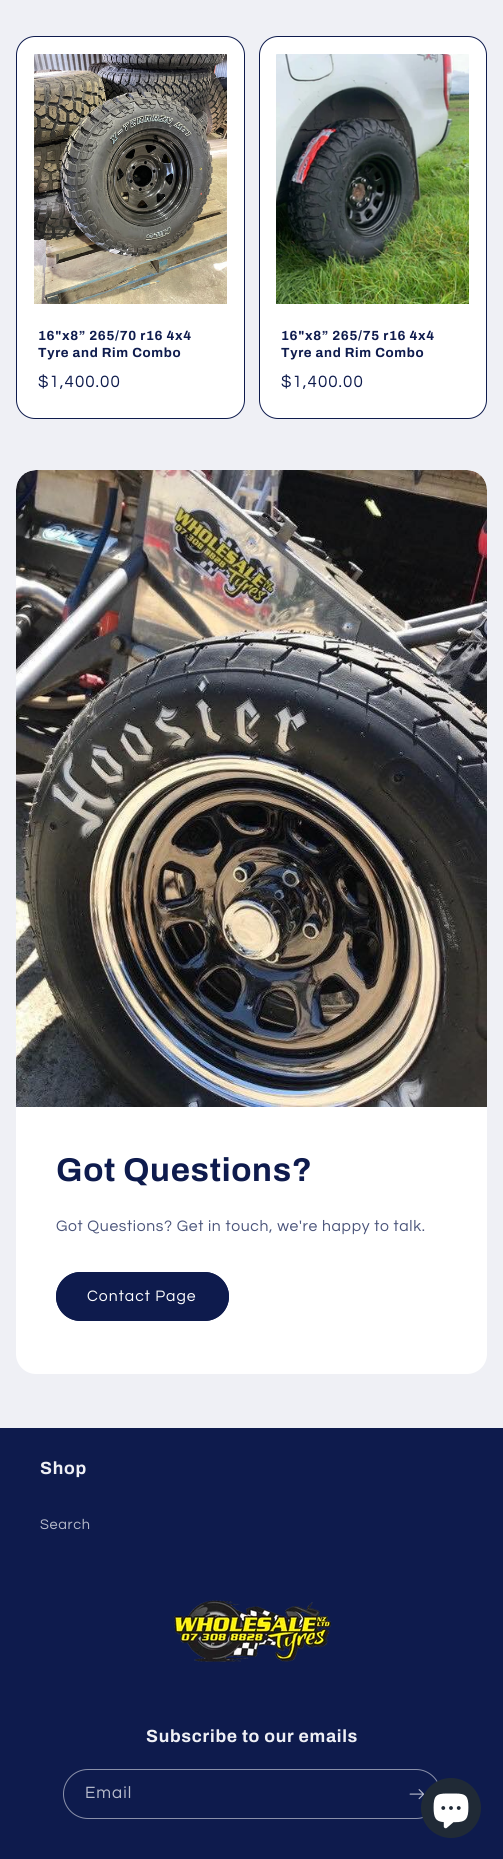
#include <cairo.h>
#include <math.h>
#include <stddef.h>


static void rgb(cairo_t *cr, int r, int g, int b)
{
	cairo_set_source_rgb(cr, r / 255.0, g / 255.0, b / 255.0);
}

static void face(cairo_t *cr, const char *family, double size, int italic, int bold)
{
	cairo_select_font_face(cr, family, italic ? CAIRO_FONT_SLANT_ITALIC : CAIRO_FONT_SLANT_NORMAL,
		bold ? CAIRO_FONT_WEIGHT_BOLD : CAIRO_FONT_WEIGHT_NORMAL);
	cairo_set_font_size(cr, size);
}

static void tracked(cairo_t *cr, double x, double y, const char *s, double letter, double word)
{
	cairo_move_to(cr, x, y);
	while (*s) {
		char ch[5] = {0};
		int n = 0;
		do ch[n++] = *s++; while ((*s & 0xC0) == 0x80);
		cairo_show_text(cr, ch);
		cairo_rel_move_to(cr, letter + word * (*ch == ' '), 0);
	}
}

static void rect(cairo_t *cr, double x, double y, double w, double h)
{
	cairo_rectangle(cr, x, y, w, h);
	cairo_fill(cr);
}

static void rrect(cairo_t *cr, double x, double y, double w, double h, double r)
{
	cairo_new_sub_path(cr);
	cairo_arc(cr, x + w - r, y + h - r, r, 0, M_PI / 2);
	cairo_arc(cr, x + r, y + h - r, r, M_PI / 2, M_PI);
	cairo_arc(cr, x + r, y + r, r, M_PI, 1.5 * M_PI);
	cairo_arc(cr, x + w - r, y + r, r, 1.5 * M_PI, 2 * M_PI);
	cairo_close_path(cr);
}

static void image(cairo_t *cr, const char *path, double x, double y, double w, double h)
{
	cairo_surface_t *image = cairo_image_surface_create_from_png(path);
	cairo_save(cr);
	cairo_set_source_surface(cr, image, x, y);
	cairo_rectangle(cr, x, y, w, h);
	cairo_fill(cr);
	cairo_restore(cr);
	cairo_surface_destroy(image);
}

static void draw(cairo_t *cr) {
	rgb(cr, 239, 240, 245);
	cairo_paint(cr);
	rgb(cr, 255, 255, 255);
	rrect(cr, 16.5, 36.5, 228, 382, 18.5);
	cairo_fill_preserve(cr);
	rgb(cr, 14, 27, 77);
	cairo_set_line_width(cr, 1);
	cairo_stroke(cr);
	image(cr, "image0.png", 34, 54, 193, 250);
	face(cr, "Archivo", 13.25, 0, 1);
	tracked(cr, 38, 340, "16\"x8” 265/70 r16 4x4", 0.7, 0);
	tracked(cr, 38, 357, "Tyre and Rim Combo", 0.7, 0);
	face(cr, "Questrial", 17, 0, 0);
	tracked(cr, 38, 387, "$1,400.00", 1, 0);
	rgb(cr, 255, 255, 255);
	rrect(cr, 259.5, 36.5, 227, 382, 18.5);
	cairo_fill_preserve(cr);
	rgb(cr, 14, 27, 77);
	cairo_stroke(cr);
	image(cr, "image1.png", 276, 54, 193, 250);
	face(cr, "Archivo", 13.25, 0, 1);
	tracked(cr, 281, 340, "16\"x8” 265/75 r16 4x4", 0.7, 0);
	tracked(cr, 281, 357, "Tyre and Rim Combo", 0.7, 0);
	face(cr, "Questrial", 17, 0, 0);
	tracked(cr, 281, 387, "$1,400.00", 1, 0);
	rgb(cr, 255, 255, 255);
	cairo_new_path(cr);
	cairo_move_to(cr, 36, 470);
	cairo_line_to(cr, 467, 470);
	cairo_curve_to(cr, 478, 470, 487, 479, 487, 490);
	cairo_line_to(cr, 487, 1107);
	cairo_line_to(cr, 16, 1107);
	cairo_line_to(cr, 16, 490);
	cairo_curve_to(cr, 16, 479, 25, 470, 36, 470);
	cairo_close_path(cr);
	cairo_fill(cr);
	image(cr, "image2.png", 16, 470, 471, 637);
	cairo_new_path(cr);
	cairo_move_to(cr, 16, 1107);
	cairo_line_to(cr, 487, 1107);
	cairo_line_to(cr, 487, 1354);
	cairo_curve_to(cr, 487, 1365, 478, 1374, 467, 1374);
	cairo_line_to(cr, 36, 1374);
	cairo_curve_to(cr, 25, 1374, 16, 1365, 16, 1354);
	cairo_close_path(cr);
	cairo_fill(cr);
	face(cr, "Archivo", 33, 0, 1);
	rgb(cr, 14, 27, 77);
	tracked(cr, 56, 1181, "Got Questions?", 0.7, 0);
	face(cr, "Questrial", 15.75, 0, 0);
	rgb(cr, 74, 84, 122);
	tracked(cr, 56, 1231, "Got Questions? Get in touch, we're happy to talk.", 0.65, 0);
	rgb(cr, 14, 27, 77);
	rrect(cr, 56, 1272, 173, 49, 24.5);
	cairo_fill(cr);
	rrect(cr, 56.5, 1272.5, 172, 48, 24);
	cairo_stroke(cr);
	rgb(cr, 255, 255, 255);
	tracked(cr, 87, 1301, "Contact Page", 1, 0);
	rgb(cr, 14, 27, 77);
	rect(cr, 0, 1428, 503, 431);
	face(cr, "Archivo", 17.6, 0, 1);
	rgb(cr, 239, 240, 245);
	tracked(cr, 40, 1474, "Shop", 0.7, 0);
	face(cr, "Questrial", 14.5, 0, 0);
	rgb(cr, 183, 187, 203);
	tracked(cr, 40, 1529, "Search", 0.65, 0);
	image(cr, "image3.png", 173, 1600, 158, 62);
	face(cr, "Archivo", 17.6, 0, 1);
	rgb(cr, 239, 240, 245);
	tracked(cr, 146, 1742, "Subscribe to our emails", 0.7, 0);
	rrect(cr, 63.5, 1769.5, 377, 49, 24.5);
	rgb(cr, 138, 144, 169);
	cairo_stroke(cr);
	face(cr, "Questrial", 17, 0, 0);
	rgb(cr, 183, 187, 203);
	tracked(cr, 85, 1798, "Email", 1, 0);
	image(cr, "image4.png", 409, 1789, 15, 11);
	rgb(cr, 32, 42, 54);
	cairo_arc(cr, 451, 1808, 30, 0, 2 * M_PI);
	cairo_fill(cr);
	image(cr, "image5.png", 433, 1793, 36, 36);
}

int main(void) {
	cairo_surface_t *surface = cairo_image_surface_create(CAIRO_FORMAT_RGB24, 503, 1859);
	cairo_t *cr = cairo_create(surface);
	cairo_font_options_t *options = cairo_font_options_create();
	cairo_font_options_set_hint_metrics(options, CAIRO_HINT_METRICS_OFF);
	cairo_font_options_set_hint_style(options, CAIRO_HINT_STYLE_NONE);
	cairo_set_font_options(cr, options);
	cairo_set_miter_limit(cr, 4);
	draw(cr);
	cairo_surface_write_to_png(surface, "render.png");
	cairo_font_options_destroy(options);
	cairo_destroy(cr);
	cairo_surface_destroy(surface);
	return 0;
}
